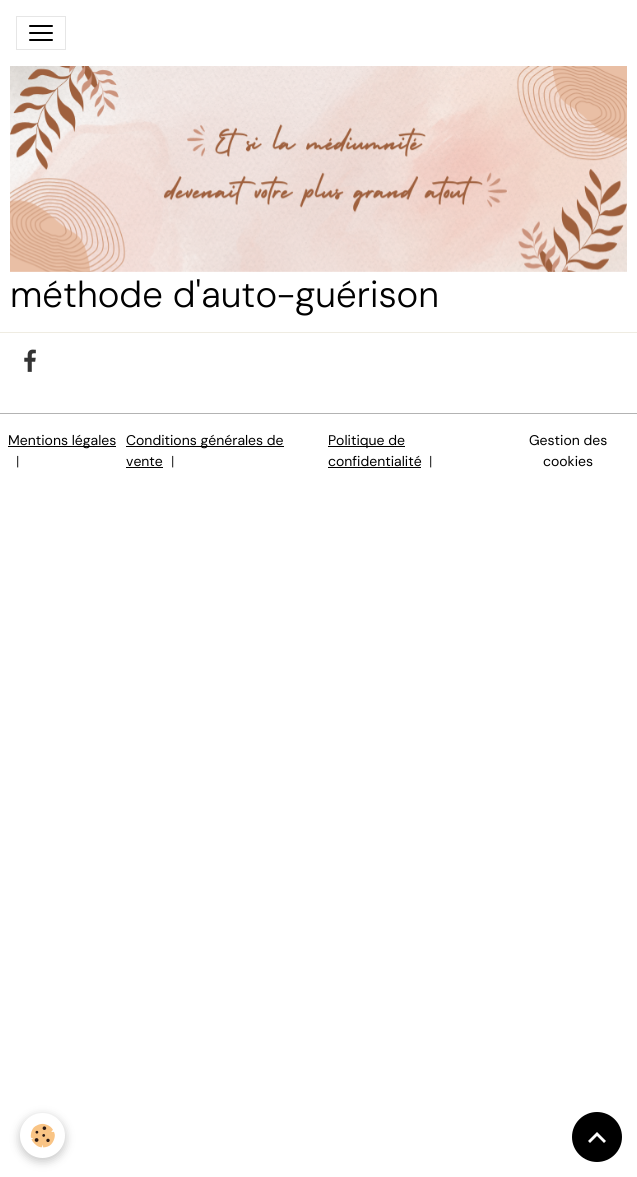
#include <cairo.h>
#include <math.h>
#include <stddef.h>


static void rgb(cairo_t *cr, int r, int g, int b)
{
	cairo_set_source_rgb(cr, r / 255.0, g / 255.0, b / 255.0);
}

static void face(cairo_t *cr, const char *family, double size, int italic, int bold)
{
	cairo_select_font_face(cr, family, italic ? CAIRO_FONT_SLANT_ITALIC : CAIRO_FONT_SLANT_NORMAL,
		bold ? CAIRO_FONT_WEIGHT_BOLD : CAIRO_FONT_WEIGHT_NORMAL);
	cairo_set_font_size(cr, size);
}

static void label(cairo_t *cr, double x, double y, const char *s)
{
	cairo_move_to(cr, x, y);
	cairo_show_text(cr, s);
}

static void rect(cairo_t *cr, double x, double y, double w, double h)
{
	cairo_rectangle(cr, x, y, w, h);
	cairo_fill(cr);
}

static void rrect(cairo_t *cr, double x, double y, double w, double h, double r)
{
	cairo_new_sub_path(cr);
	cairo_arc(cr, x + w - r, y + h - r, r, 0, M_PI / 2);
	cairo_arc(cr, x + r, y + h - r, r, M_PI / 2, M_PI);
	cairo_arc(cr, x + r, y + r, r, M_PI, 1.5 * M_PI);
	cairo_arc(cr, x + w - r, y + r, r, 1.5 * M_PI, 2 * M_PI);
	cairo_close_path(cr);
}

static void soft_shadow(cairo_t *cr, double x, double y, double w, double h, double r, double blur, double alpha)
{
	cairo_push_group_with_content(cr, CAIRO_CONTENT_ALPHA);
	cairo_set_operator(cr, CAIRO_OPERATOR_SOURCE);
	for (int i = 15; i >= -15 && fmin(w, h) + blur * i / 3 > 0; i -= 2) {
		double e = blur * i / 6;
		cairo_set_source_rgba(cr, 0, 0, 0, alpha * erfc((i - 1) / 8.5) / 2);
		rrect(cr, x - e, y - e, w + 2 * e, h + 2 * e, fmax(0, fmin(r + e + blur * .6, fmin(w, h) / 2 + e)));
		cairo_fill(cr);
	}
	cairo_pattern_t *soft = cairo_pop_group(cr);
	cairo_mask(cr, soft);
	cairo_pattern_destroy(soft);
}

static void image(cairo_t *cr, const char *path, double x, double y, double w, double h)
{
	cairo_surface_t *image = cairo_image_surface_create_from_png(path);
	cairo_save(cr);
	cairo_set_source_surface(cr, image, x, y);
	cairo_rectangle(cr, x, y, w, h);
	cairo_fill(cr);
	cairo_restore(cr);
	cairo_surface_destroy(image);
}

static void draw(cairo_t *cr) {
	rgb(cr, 255, 255, 255);
	cairo_paint(cr);
	cairo_rectangle(cr, 16.5, 16.5, 49, 33);
	rgb(cr, 230, 230, 230);
	cairo_set_line_width(cr, 1);
	cairo_stroke(cr);
	rgb(cr, 0, 0, 0);
	rrect(cr, 29, 25, 24, 2, 1);
	cairo_fill(cr);
	rrect(cr, 29, 32, 24, 2, 1);
	cairo_fill(cr);
	rrect(cr, 29, 39, 24, 2, 1);
	cairo_fill(cr);
	image(cr, "image0.png", 10, 66, 617, 206);
	face(cr, "DM Sans Light", 36.75, 0, 0);
	label(cr, 10, 307, "méthode d'auto-guérison");
	rgb(cr, 239, 236, 226);
	rect(cr, 0, 332, 637, 1);
	image(cr, "image1.png", 24, 349, 12, 23);
	rgb(cr, 179, 179, 179);
	rect(cr, 0, 413, 637, 1);
	rgb(cr, 0, 0, 0);
	rect(cr, 8, 446, 108, 1);
	face(cr, "DM Sans", 14, 0, 0);
	label(cr, 8, 445, "Mentions légales");
	rgb(cr, 51, 51, 51);
	label(cr, 16, 466, "|");
	rgb(cr, 0, 0, 0);
	rect(cr, 126, 446, 158, 1);
	label(cr, 126, 445, "Conditions générales de");
	label(cr, 126, 466, "vente");
	rect(cr, 126, 467, 37, 1);
	rgb(cr, 51, 51, 51);
	label(cr, 171, 466, "|");
	rgb(cr, 0, 0, 0);
	rect(cr, 328, 446, 77, 1);
	label(cr, 328, 445, "Politique de");
	label(cr, 328, 466, "confidentialité");
	rect(cr, 328, 467, 93, 1);
	rgb(cr, 51, 51, 51);
	label(cr, 429, 466, "|");
	rgb(cr, 0, 0, 0);
	label(cr, 529, 445, "Gestion des");
	label(cr, 543, 466, "cookies");
	rgb(cr, 0, 0, 0);
	soft_shadow(cr, 20, 1116, 45, 45, 22.5, 5, 0.24);
	rgb(cr, 255, 255, 255);
	cairo_arc(cr, 42.5, 1135.5, 22.5, 0, 2 * M_PI);
	cairo_fill(cr);
	image(cr, "image2.png", 30, 1123, 25, 25);
	rgb(cr, 0, 0, 0);
	cairo_arc(cr, 597, 1137, 25, 0, 2 * M_PI);
	cairo_fill(cr);
	rgb(cr, 255, 255, 255);
	cairo_new_path(cr);
	cairo_move_to(cr, 597, 1132);
	cairo_line_to(cr, 606, 1141);
	cairo_line_to(cr, 604, 1143);
	cairo_line_to(cr, 597, 1136);
	cairo_line_to(cr, 590, 1143);
	cairo_line_to(cr, 588, 1141);
	cairo_close_path(cr);
	cairo_fill(cr);
}

int main(void) {
	cairo_surface_t *surface = cairo_image_surface_create(CAIRO_FORMAT_RGB24, 637, 1177);
	cairo_t *cr = cairo_create(surface);
	cairo_font_options_t *options = cairo_font_options_create();
	cairo_font_options_set_hint_metrics(options, CAIRO_HINT_METRICS_OFF);
	cairo_font_options_set_hint_style(options, CAIRO_HINT_STYLE_NONE);
	cairo_set_font_options(cr, options);
	cairo_set_miter_limit(cr, 4);
	draw(cr);
	cairo_surface_write_to_png(surface, "render.png");
	cairo_font_options_destroy(options);
	cairo_destroy(cr);
	cairo_surface_destroy(surface);
	return 0;
}
